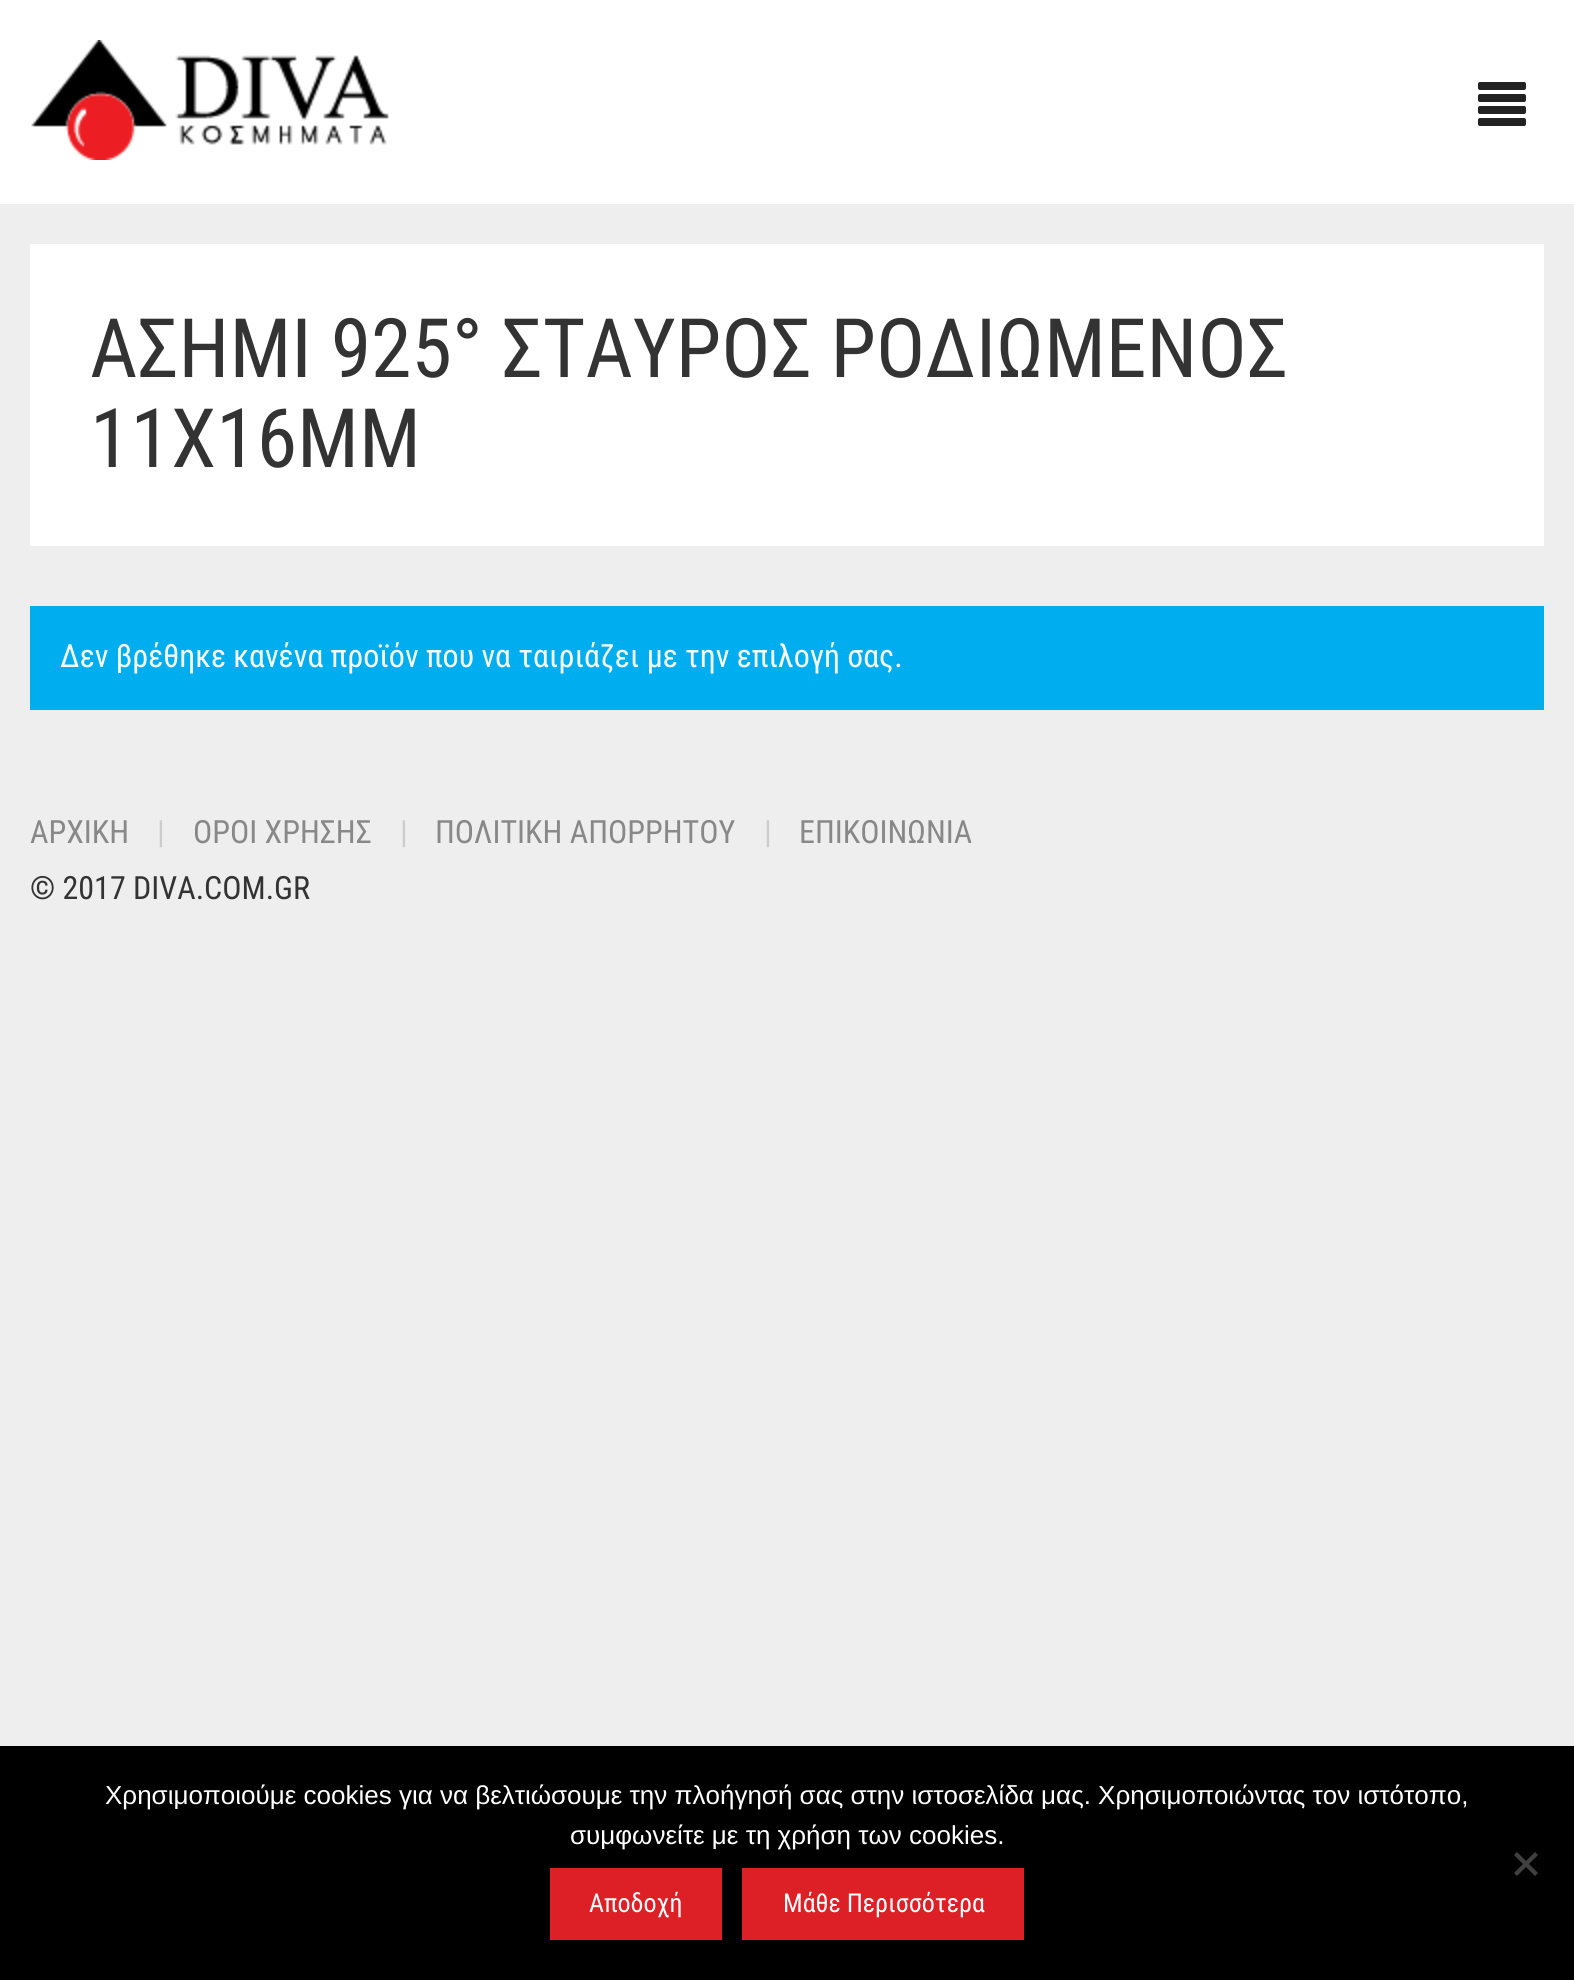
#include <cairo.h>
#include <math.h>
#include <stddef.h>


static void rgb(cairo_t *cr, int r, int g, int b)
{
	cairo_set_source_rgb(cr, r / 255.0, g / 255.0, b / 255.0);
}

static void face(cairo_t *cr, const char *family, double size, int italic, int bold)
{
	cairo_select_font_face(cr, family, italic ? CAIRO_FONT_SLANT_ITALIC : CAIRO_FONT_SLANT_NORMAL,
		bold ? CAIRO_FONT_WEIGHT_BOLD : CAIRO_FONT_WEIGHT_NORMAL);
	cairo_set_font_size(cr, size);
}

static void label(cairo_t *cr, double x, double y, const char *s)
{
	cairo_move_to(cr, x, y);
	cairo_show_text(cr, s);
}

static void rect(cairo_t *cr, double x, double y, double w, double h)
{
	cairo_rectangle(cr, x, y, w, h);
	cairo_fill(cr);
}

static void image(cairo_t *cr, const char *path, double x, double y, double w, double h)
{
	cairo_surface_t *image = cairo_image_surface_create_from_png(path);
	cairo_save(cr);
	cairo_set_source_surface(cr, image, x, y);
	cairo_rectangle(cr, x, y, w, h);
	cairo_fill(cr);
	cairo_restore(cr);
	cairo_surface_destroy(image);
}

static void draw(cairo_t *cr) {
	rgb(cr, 238, 238, 238);
	cairo_paint(cr);
	rgb(cr, 255, 255, 255);
	rect(cr, 0, 0, 1574, 204);
	image(cr, "image0.png", 31, 40, 358, 120);
	image(cr, "image1.png", 1478, 82, 48, 44);
	rect(cr, 30, 244, 1514, 302);
	face(cr, "Roboto Condensed", 82, 0, 0);
	rgb(cr, 51, 51, 51);
	label(cr, 90, 377, "ΑΣΗΜΙ 925° ΣΤΑΥΡΟΣ ΡΟΔΙΩΜΕΝΟΣ");
	label(cr, 90, 467, "11X16MM");
	rgb(cr, 0, 174, 239);
	rect(cr, 30, 606, 1514, 104);
	face(cr, "Roboto Condensed", 32, 0, 0);
	rgb(cr, 255, 255, 255);
	label(cr, 60, 667, "Δεν βρέθηκε κανένα προϊόν που να ταιριάζει με την επιλογή σας.");
	rgb(cr, 136, 136, 136);
	label(cr, 30, 843, "ΑΡΧΙΚΗ");
	face(cr, "Roboto", 32, 0, 0);
	rgb(cr, 204, 204, 204);
	label(cr, 157, 843, "|");
	face(cr, "Roboto Condensed", 32, 0, 0);
	rgb(cr, 136, 136, 136);
	label(cr, 193, 843, "ΟΡΟΙ ΧΡΗΣΗΣ");
	face(cr, "Roboto", 32, 0, 0);
	rgb(cr, 204, 204, 204);
	label(cr, 400, 843, "|");
	face(cr, "Roboto Condensed", 32, 0, 0);
	rgb(cr, 136, 136, 136);
	label(cr, 435, 843, "ΠΟΛΙΤΙΚΗ ΑΠΟΡΡΗΤΟΥ");
	face(cr, "Roboto", 32, 0, 0);
	rgb(cr, 204, 204, 204);
	label(cr, 764, 843, "|");
	face(cr, "Roboto Condensed", 32, 0, 0);
	rgb(cr, 136, 136, 136);
	label(cr, 799, 843, "ΕΠΙΚΟΙΝΩΝΙΑ");
	rgb(cr, 51, 51, 51);
	label(cr, 30, 899, "© 2017 DIVA.COM.GR");
	rgb(cr, 0, 0, 0);
	rect(cr, 0, 1746, 1574, 234);
	face(cr, "Liberation Sans", 26, 0, 0);
	rgb(cr, 255, 255, 255);
	label(cr, 105, 1804, "Χρησιμοποιούμε cookies για να βελτιώσουμε την πλοήγησή σας στην ιστοσελίδα μας. Χρησιμοποιώντας τον ιστότοπο,");
	label(cr, 570, 1844, "συμφωνείτε με τη χρήση των cookies.");
	rgb(cr, 64, 64, 64);
	cairo_new_path(cr);
	cairo_move_to(cr, 1535, 1852);
	cairo_line_to(cr, 1538, 1855);
	cairo_line_to(cr, 1517, 1876);
	cairo_line_to(cr, 1514, 1873);
	cairo_close_path(cr);
	cairo_fill(cr);
	cairo_new_path(cr);
	cairo_move_to(cr, 1514, 1855);
	cairo_line_to(cr, 1517, 1852);
	cairo_line_to(cr, 1538, 1873);
	cairo_line_to(cr, 1535, 1876);
	cairo_close_path(cr);
	cairo_fill(cr);
	rgb(cr, 221, 31, 38);
	rect(cr, 550, 1868, 172, 72);
	face(cr, "Roboto Condensed", 26, 0, 0);
	rgb(cr, 255, 255, 255);
	label(cr, 589, 1912, "Αποδοχή");
	rgb(cr, 221, 31, 38);
	rect(cr, 742, 1868, 282, 72);
	rgb(cr, 255, 255, 255);
	label(cr, 783, 1912, "Μάθε Περισσότερα");
}

int main(void) {
	cairo_surface_t *surface = cairo_image_surface_create(CAIRO_FORMAT_RGB24, 1574, 1980);
	cairo_t *cr = cairo_create(surface);
	cairo_font_options_t *options = cairo_font_options_create();
	cairo_font_options_set_hint_metrics(options, CAIRO_HINT_METRICS_OFF);
	cairo_font_options_set_hint_style(options, CAIRO_HINT_STYLE_NONE);
	cairo_set_font_options(cr, options);
	cairo_set_miter_limit(cr, 4);
	draw(cr);
	cairo_surface_write_to_png(surface, "render.png");
	cairo_font_options_destroy(options);
	cairo_destroy(cr);
	cairo_surface_destroy(surface);
	return 0;
}
